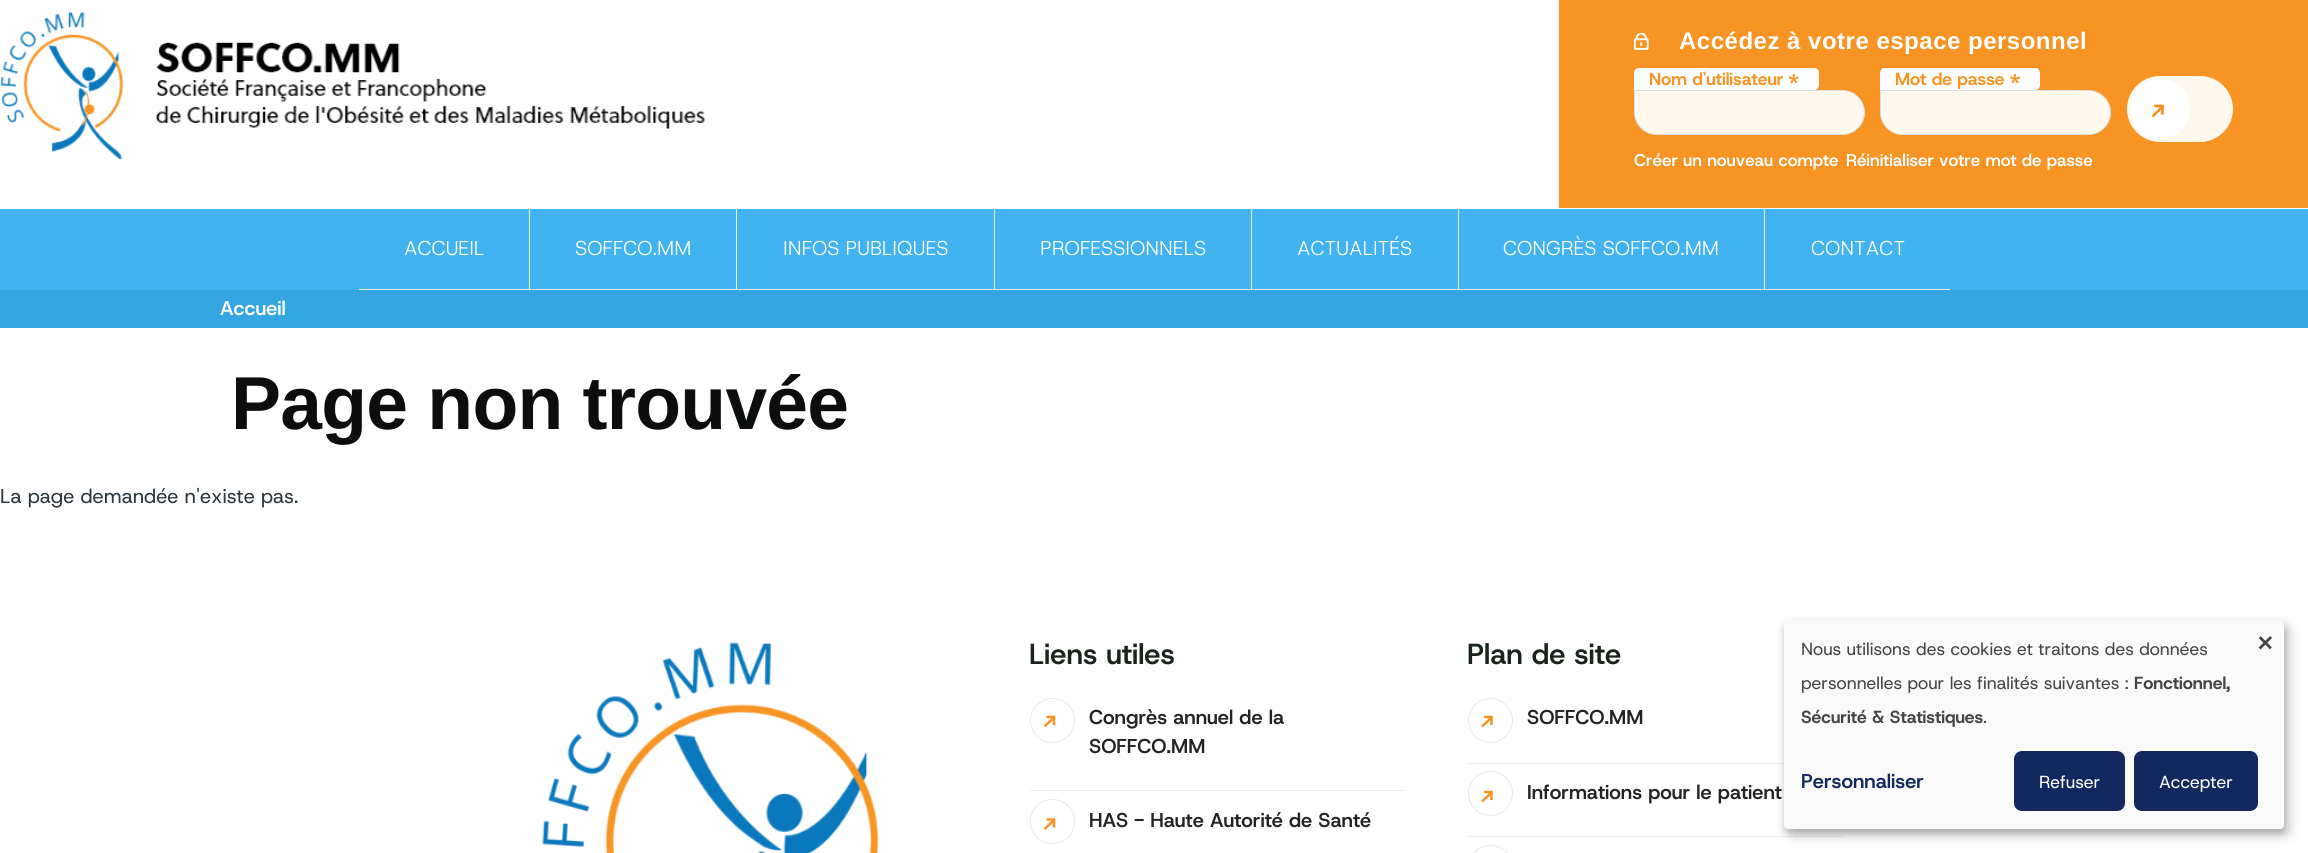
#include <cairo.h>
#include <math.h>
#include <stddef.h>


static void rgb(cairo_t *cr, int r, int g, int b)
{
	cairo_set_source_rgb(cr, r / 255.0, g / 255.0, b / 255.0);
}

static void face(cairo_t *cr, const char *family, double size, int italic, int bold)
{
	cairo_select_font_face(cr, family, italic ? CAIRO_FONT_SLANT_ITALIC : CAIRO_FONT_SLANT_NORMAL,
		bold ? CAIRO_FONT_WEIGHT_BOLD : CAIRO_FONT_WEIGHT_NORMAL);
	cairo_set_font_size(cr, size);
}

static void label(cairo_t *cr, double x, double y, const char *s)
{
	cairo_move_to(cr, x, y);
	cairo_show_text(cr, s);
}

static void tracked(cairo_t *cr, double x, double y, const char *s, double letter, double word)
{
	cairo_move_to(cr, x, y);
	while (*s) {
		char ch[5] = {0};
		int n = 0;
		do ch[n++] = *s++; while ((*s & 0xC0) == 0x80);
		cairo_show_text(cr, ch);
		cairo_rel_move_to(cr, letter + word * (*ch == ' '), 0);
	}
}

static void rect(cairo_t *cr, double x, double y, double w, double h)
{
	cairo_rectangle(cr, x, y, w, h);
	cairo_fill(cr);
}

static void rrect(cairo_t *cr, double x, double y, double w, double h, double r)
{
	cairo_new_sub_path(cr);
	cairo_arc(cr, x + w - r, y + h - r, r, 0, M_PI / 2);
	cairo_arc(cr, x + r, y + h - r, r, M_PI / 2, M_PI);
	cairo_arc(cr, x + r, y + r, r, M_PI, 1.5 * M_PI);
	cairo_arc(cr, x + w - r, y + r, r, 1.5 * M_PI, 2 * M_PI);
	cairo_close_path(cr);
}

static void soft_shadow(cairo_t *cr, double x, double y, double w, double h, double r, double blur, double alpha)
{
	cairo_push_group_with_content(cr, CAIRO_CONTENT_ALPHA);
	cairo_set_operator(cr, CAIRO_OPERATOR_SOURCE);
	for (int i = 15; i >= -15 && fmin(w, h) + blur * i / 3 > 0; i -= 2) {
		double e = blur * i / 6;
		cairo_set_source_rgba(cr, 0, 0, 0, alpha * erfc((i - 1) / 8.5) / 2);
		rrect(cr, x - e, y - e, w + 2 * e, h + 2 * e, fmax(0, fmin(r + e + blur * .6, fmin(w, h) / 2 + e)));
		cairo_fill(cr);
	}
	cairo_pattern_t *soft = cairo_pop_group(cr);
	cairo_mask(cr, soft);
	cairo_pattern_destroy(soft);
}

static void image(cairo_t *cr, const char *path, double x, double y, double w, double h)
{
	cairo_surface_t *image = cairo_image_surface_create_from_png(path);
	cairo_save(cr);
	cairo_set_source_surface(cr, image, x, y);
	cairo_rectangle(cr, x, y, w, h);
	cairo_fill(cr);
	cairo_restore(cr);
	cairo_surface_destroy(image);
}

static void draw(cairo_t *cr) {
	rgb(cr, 255, 255, 255);
	cairo_paint(cr);
	image(cr, "image0.png", 0, 11, 706, 150);
	rgb(cr, 247, 148, 35);
	rect(cr, 1559, 0, 749, 208);
	image(cr, "image1.png", 1634, 33, 15, 17);
	face(cr, "Liberation Sans", 24, 0, 1);
	rgb(cr, 255, 255, 255);
	tracked(cr, 1679, 49, "Accédez à votre espace personnel", 0.5, 0);
	cairo_new_path(cr);
	cairo_move_to(cr, 1639, 68);
	cairo_line_to(cr, 1814, 68);
	cairo_curve_to(cr, 1817, 68, 1819, 70, 1819, 73);
	cairo_line_to(cr, 1819, 85);
	cairo_curve_to(cr, 1819, 88, 1817, 90, 1814, 90);
	cairo_line_to(cr, 1634, 90);
	cairo_line_to(cr, 1634, 73);
	cairo_curve_to(cr, 1634, 70, 1636, 68, 1639, 68);
	cairo_close_path(cr);
	cairo_fill(cr);
	face(cr, "Host Grotesk", 17.5, 0, 1);
	rgb(cr, 247, 148, 35);
	label(cr, 1649, 85, "Nom d'utilisateur");
	image(cr, "image2.png", 1789, 74, 10, 10);
	rgb(cr, 255, 249, 237);
	cairo_new_path(cr);
	cairo_move_to(cr, 1634.5, 90.5);
	cairo_line_to(cr, 1842.5, 90.5);
	cairo_curve_to(cr, 1854.5, 90.5, 1864.5, 100.5, 1864.5, 112.5);
	cairo_curve_to(cr, 1864.5, 124.5, 1854.5, 134.5, 1842.5, 134.5);
	cairo_line_to(cr, 1656.5, 134.5);
	cairo_curve_to(cr, 1644.5, 134.5, 1634.5, 124.5, 1634.5, 112.5);
	cairo_close_path(cr);
	cairo_fill_preserve(cr);
	rgb(cr, 222, 222, 222);
	cairo_set_line_width(cr, 1);
	cairo_stroke(cr);
	rgb(cr, 255, 255, 255);
	cairo_new_path(cr);
	cairo_move_to(cr, 1885, 68);
	cairo_line_to(cr, 2035, 68);
	cairo_curve_to(cr, 2038, 68, 2040, 70, 2040, 73);
	cairo_line_to(cr, 2040, 85);
	cairo_curve_to(cr, 2040, 88, 2038, 90, 2035, 90);
	cairo_line_to(cr, 1880, 90);
	cairo_line_to(cr, 1880, 73);
	cairo_curve_to(cr, 1880, 70, 1882, 68, 1885, 68);
	cairo_close_path(cr);
	cairo_fill(cr);
	rgb(cr, 247, 148, 35);
	label(cr, 1895, 85, "Mot de passe");
	image(cr, "image3.png", 2010, 74, 10, 10);
	rgb(cr, 255, 249, 237);
	cairo_new_path(cr);
	cairo_move_to(cr, 1880.5, 90.5);
	cairo_line_to(cr, 2088.5, 90.5);
	cairo_curve_to(cr, 2100.5, 90.5, 2110.5, 100.5, 2110.5, 112.5);
	cairo_curve_to(cr, 2110.5, 124.5, 2100.5, 134.5, 2088.5, 134.5);
	cairo_line_to(cr, 1902.5, 134.5);
	cairo_curve_to(cr, 1890.5, 134.5, 1880.5, 124.5, 1880.5, 112.5);
	cairo_close_path(cr);
	cairo_fill_preserve(cr);
	rgb(cr, 222, 222, 222);
	cairo_stroke(cr);
	rgb(cr, 255, 249, 237);
	rrect(cr, 2126.5, 75.5, 107, 67, 33.5);
	cairo_fill_preserve(cr);
	rgb(cr, 247, 148, 35);
	cairo_stroke(cr);
	rgb(cr, 255, 255, 255);
	cairo_arc(cr, 2160, 109, 30, 0, 2 * M_PI);
	cairo_fill(cr);
	cairo_new_path(cr);
	cairo_move_to(cr, 2162.5, 114.5);
	cairo_line_to(cr, 2162.5, 106);
	cairo_line_to(cr, 2154, 106);
	cairo_move_to(cr, 2152.5, 116.5);
	cairo_line_to(cr, 2162, 107);
	rgb(cr, 247, 148, 35);
	cairo_set_line_width(cr, 2.7);
	cairo_stroke(cr);
	face(cr, "Host Grotesk SemiBold", 17, 0, 0);
	rgb(cr, 255, 255, 255);
	label(cr, 1634, 166, "Créer un nouveau compte");
	label(cr, 1846, 166, "Réinitialiser votre mot de passe");
	rgb(cr, 64, 179, 240);
	rect(cr, 0, 209, 2308, 81);
	rgb(cr, 255, 255, 255);
	rect(cr, 529, 209, 1, 81);
	rgb(cr, 233, 233, 233);
	rect(cr, 359, 289, 171, 1);
	face(cr, "Host Grotesk Light", 20, 0, 0);
	rgb(cr, 255, 255, 255);
	label(cr, 404, 255, "ACCUEIL");
	rect(cr, 736, 209, 1, 81);
	rgb(cr, 233, 233, 233);
	rect(cr, 530, 289, 208, 1);
	rgb(cr, 255, 255, 255);
	label(cr, 575, 255, "SOFFCO.MM");
	rect(cr, 994, 209, 1, 81);
	rgb(cr, 233, 233, 233);
	rect(cr, 738, 289, 257, 1);
	rgb(cr, 255, 255, 255);
	label(cr, 783, 255, "INFOS PUBLIQUES");
	rect(cr, 1251, 209, 1, 81);
	rgb(cr, 233, 233, 233);
	rect(cr, 995, 289, 258, 1);
	rgb(cr, 255, 255, 255);
	label(cr, 1040, 255, "PROFESSIONNELS");
	rect(cr, 1458, 209, 1, 81);
	rgb(cr, 233, 233, 233);
	rect(cr, 1253, 289, 206, 1);
	rgb(cr, 255, 255, 255);
	label(cr, 1297, 255, "ACTUALITÉS");
	rect(cr, 1764, 209, 1, 81);
	rgb(cr, 233, 233, 233);
	rect(cr, 1459, 289, 491, 1);
	rgb(cr, 255, 255, 255);
	label(cr, 1503, 255, "CONGRÈS SOFFCO.MM");
	label(cr, 1811, 255, "CONTACT");
	rgb(cr, 52, 165, 225);
	rect(cr, 0, 290, 2308, 38);
	face(cr, "Host Grotesk SemiBold", 20, 0, 0);
	rgb(cr, 255, 255, 255);
	label(cr, 220, 315, "Accueil");
	face(cr, "Liberation Sans", 75, 0, 1);
	rgb(cr, 11, 13, 15);
	tracked(cr, 231, 429, "Page non trouvée", -0.75, 0);
	face(cr, "Host Grotesk", 20, 0, 0);
	rgb(cr, 43, 53, 59);
	label(cr, 0, 503, "La page demandée n'existe pas.");
	image(cr, "image4.png", 542, 642, 337, 211);
	face(cr, "Host Grotesk SemiBold", 29, 0, 0);
	rgb(cr, 26, 36, 28);
	label(cr, 1029, 664, "Liens utiles");
	rgb(cr, 238, 238, 238);
	rect(cr, 1030, 790, 375, 1);
	cairo_new_path(cr);
	cairo_move_to(cr, 1054, 725);
	cairo_line_to(cr, 1054, 717);
	cairo_line_to(cr, 1046.5, 717);
	cairo_move_to(cr, 1044.5, 726.5);
	cairo_line_to(cr, 1054, 717.5);
	rgb(cr, 247, 148, 35);
	cairo_set_line_width(cr, 2.5);
	cairo_stroke(cr);
	cairo_arc(cr, 1052.5, 720.5, 22, 0, 2 * M_PI);
	rgb(cr, 233, 233, 233);
	cairo_set_line_width(cr, 1);
	cairo_stroke(cr);
	face(cr, "Host Grotesk SemiBold", 20, 0, 0);
	rgb(cr, 35, 35, 35);
	label(cr, 1089, 724, "Congrès annuel de la");
	label(cr, 1089, 753, "SOFFCO.MM");
	cairo_new_path(cr);
	cairo_move_to(cr, 1054, 827.5);
	cairo_line_to(cr, 1054, 819.5);
	cairo_line_to(cr, 1046.5, 819.5);
	cairo_move_to(cr, 1044.5, 829);
	cairo_line_to(cr, 1054, 820);
	rgb(cr, 247, 148, 35);
	cairo_set_line_width(cr, 2.5);
	cairo_stroke(cr);
	cairo_arc(cr, 1052.5, 821.5, 22, 0, 2 * M_PI);
	rgb(cr, 233, 233, 233);
	cairo_set_line_width(cr, 1);
	cairo_stroke(cr);
	rgb(cr, 35, 35, 35);
	label(cr, 1089, 827, "HAS - Haute Autorité de Santé");
	face(cr, "Host Grotesk SemiBold", 29, 0, 0);
	rgb(cr, 26, 36, 28);
	label(cr, 1467, 664, "Plan de site");
	rgb(cr, 238, 238, 238);
	rect(cr, 1468, 763, 316, 1);
	cairo_new_path(cr);
	cairo_move_to(cr, 1491.5, 725);
	cairo_line_to(cr, 1491.5, 717);
	cairo_line_to(cr, 1484, 717);
	cairo_move_to(cr, 1482, 726.5);
	cairo_line_to(cr, 1491.5, 717.5);
	rgb(cr, 247, 148, 35);
	cairo_set_line_width(cr, 2.5);
	cairo_stroke(cr);
	cairo_arc(cr, 1490.5, 720.5, 22, 0, 2 * M_PI);
	rgb(cr, 233, 233, 233);
	cairo_set_line_width(cr, 1);
	cairo_stroke(cr);
	face(cr, "Host Grotesk SemiBold", 20, 0, 0);
	rgb(cr, 35, 35, 35);
	label(cr, 1527, 724, "SOFFCO.MM");
	rgb(cr, 238, 238, 238);
	rect(cr, 1468, 836, 375, 1);
	cairo_new_path(cr);
	cairo_move_to(cr, 1491.5, 800);
	cairo_line_to(cr, 1491.5, 792);
	cairo_line_to(cr, 1484, 792);
	cairo_move_to(cr, 1482, 801.5);
	cairo_line_to(cr, 1491.5, 792.5);
	rgb(cr, 247, 148, 35);
	cairo_set_line_width(cr, 2.5);
	cairo_stroke(cr);
	cairo_arc(cr, 1490.5, 793.5, 22, 0, 2 * M_PI);
	rgb(cr, 233, 233, 233);
	cairo_set_line_width(cr, 1);
	cairo_stroke(cr);
	rgb(cr, 35, 35, 35);
	label(cr, 1527, 799, "Informations pour le patient");
	rrect(cr, 1468.5, 845.5, 44, 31, 22);
	rgb(cr, 233, 233, 233);
	cairo_stroke(cr);
	rgb(cr, 0, 0, 0);
	soft_shadow(cr, 1790, 626, 500, 209, 4, 6, 0.19);
	soft_shadow(cr, 1784, 625, 500, 209, 4, 4, 0.2);
	rgb(cr, 250, 250, 250);
	rrect(cr, 1784, 620, 500, 209, 4);
	cairo_fill(cr);
	face(cr, "Host Grotesk", 17.5, 0, 0);
	rgb(cr, 68, 68, 68);
	label(cr, 1801, 655, "Nous utilisons des cookies et traitons des données");
	label(cr, 1801, 689, "personnelles pour les finalités suivantes :");
	face(cr, "Host Grotesk", 17.5, 0, 1);
	label(cr, 2134, 689, "Fonctionnel,");
	label(cr, 1801, 723, "Sécurité & Statistiques");
	face(cr, "Host Grotesk", 17.5, 0, 0);
	label(cr, 1983, 723, ".");
	face(cr, "Host Grotesk SemiBold", 20, 0, 0);
	rgb(cr, 18, 40, 95);
	label(cr, 1801, 788, "Personnaliser");
	rrect(cr, 2016, 753, 107, 56, 6);
	cairo_fill_preserve(cr);
	cairo_set_line_width(cr, 4);
	cairo_stroke(cr);
	face(cr, "Host Grotesk", 17.5, 0, 0);
	rgb(cr, 255, 255, 255);
	label(cr, 2039, 788, "Refuser");
	rgb(cr, 18, 40, 95);
	rrect(cr, 2136, 753, 120, 56, 6);
	cairo_fill_preserve(cr);
	cairo_stroke(cr);
	rgb(cr, 255, 255, 255);
	label(cr, 2159, 788, "Accepter");
	face(cr, "Host Grotesk", 35, 0, 0);
	rgb(cr, 68, 68, 68);
	label(cr, 2255, 655, "×");
}

int main(void) {
	cairo_surface_t *surface = cairo_image_surface_create(CAIRO_FORMAT_RGB24, 2308, 853);
	cairo_t *cr = cairo_create(surface);
	cairo_font_options_t *options = cairo_font_options_create();
	cairo_font_options_set_hint_metrics(options, CAIRO_HINT_METRICS_OFF);
	cairo_font_options_set_hint_style(options, CAIRO_HINT_STYLE_NONE);
	cairo_set_font_options(cr, options);
	cairo_set_miter_limit(cr, 4);
	draw(cr);
	cairo_surface_write_to_png(surface, "render.png");
	cairo_font_options_destroy(options);
	cairo_destroy(cr);
	cairo_surface_destroy(surface);
	return 0;
}
